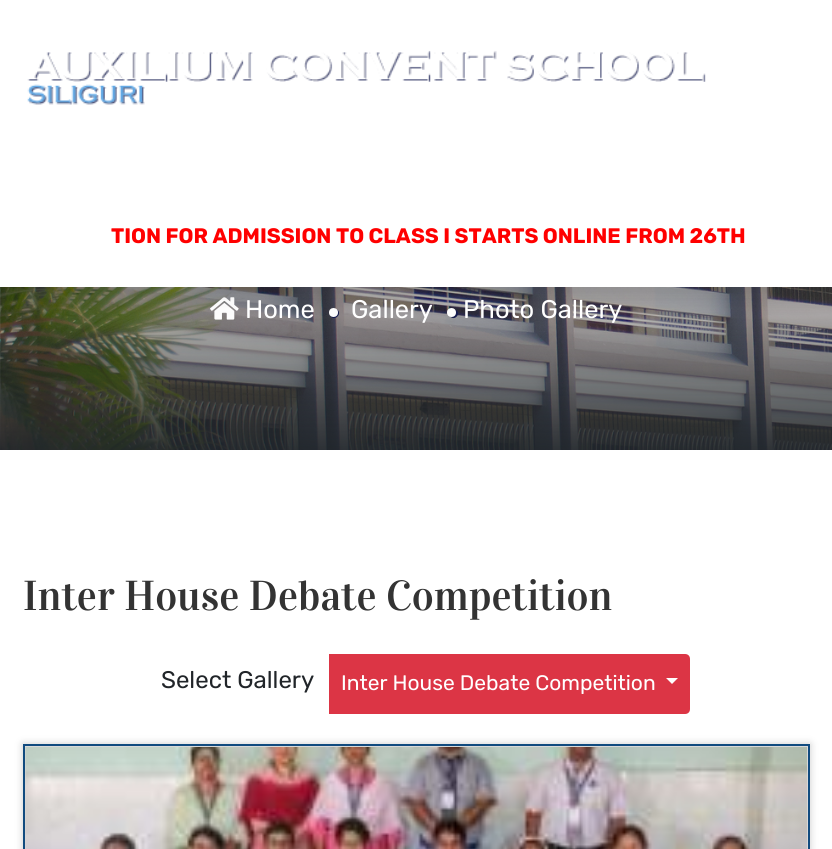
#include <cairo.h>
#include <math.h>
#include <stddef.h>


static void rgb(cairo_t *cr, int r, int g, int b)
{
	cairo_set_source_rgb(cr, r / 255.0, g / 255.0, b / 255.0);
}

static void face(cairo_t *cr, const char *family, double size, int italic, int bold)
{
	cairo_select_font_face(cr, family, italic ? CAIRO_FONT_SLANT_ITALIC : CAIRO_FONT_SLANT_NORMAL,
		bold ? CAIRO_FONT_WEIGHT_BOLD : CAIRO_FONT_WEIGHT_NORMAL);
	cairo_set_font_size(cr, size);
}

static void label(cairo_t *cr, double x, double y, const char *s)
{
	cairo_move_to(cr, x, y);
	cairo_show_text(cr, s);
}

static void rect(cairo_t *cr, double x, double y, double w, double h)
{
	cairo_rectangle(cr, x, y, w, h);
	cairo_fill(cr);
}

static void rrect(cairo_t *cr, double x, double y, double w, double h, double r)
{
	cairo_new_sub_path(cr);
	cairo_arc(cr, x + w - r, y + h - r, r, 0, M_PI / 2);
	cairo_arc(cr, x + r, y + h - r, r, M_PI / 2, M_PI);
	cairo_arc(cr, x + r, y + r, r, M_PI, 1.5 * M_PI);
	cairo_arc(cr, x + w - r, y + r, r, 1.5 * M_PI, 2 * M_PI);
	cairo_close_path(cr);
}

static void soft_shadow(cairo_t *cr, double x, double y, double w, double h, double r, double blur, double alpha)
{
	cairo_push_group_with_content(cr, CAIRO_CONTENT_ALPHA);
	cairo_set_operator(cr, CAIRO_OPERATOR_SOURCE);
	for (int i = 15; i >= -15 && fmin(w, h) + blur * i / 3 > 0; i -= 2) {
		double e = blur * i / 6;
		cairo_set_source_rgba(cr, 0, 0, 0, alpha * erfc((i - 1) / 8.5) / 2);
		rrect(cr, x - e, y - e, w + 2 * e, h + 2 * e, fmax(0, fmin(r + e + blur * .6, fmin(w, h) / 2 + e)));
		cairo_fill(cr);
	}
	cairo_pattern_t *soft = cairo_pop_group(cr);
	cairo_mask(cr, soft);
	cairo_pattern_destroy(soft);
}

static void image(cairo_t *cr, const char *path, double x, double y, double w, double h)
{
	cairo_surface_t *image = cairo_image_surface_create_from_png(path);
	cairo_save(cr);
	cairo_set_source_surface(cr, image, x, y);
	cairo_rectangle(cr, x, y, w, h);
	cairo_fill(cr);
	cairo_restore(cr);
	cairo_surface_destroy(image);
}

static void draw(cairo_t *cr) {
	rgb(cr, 255, 255, 255);
	cairo_paint(cr);
	image(cr, "image1.png", 0, 287, 832, 163);
	image(cr, "image2.png", 210, 297, 29, 23);
	rgb(cr, 20, 27, 79);
	cairo_new_path(cr);
	cairo_move_to(cr, 330.5, 316);
	cairo_curve_to(cr, 334.5, 322, 343, 313.5, 337, 309.5);
	cairo_curve_to(cr, 339, 313.5, 334.5, 318, 330.5, 316);
	cairo_close_path(cr);
	cairo_fill(cr);
	rgb(cr, 255, 255, 255);
	cairo_arc(cr, 333.5, 312.5, 4.5, 0, 2 * M_PI);
	cairo_fill(cr);
	rgb(cr, 20, 27, 79);
	cairo_new_path(cr);
	cairo_move_to(cr, 450, 316);
	cairo_curve_to(cr, 454.5, 322.5, 462.5, 312, 455, 309.5);
	cairo_curve_to(cr, 457.5, 313, 454, 318, 450, 316);
	cairo_close_path(cr);
	cairo_fill(cr);
	rgb(cr, 255, 255, 255);
	cairo_arc(cr, 451.5, 312.5, 4.5, 0, 2 * M_PI);
	cairo_fill(cr);
	rgb(cr, 0, 0, 0);
	soft_shadow(cr, 0, 3, 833, 287, 0, 21, 0.09);
	rgb(cr, 255, 255, 255);
	rect(cr, 0, 0, 832, 287);
	image(cr, "image0.png", 27, 50, 679, 55);
	face(cr, "Rubik", 21, 0, 1);
	rgb(cr, 255, 0, 0);
	label(cr, 111, 243, "TION FOR ADMISSION TO CLASS I STARTS ONLINE FROM 26TH");
	face(cr, "Rubik", 25.5, 0, 0);
	rgb(cr, 255, 255, 255);
	label(cr, 245, 318, "Home");
	label(cr, 351, 318, "Gallery");
	label(cr, 463, 318, "Photo Gallery");
	face(cr, "Vidaloka", 42, 0, 0);
	rgb(cr, 51, 51, 51);
	label(cr, 23, 610, "Inter House Debate Competition");
	face(cr, "Rubik", 24, 0, 0);
	rgb(cr, 33, 37, 41);
	label(cr, 161, 688, "Select Gallery");
	rgb(cr, 220, 53, 69);
	cairo_new_path(cr);
	cairo_move_to(cr, 329, 654);
	cairo_line_to(cr, 685, 654);
	cairo_curve_to(cr, 688, 654, 690, 656, 690, 659);
	cairo_line_to(cr, 690, 709);
	cairo_curve_to(cr, 690, 712, 688, 714, 685, 714);
	cairo_line_to(cr, 329, 714);
	cairo_close_path(cr);
	cairo_fill(cr);
	face(cr, "Rubik", 21, 0, 0);
	rgb(cr, 255, 255, 255);
	label(cr, 341, 690, "Inter House Debate Competition");
	cairo_new_path(cr);
	cairo_move_to(cr, 666, 678);
	cairo_line_to(cr, 678, 678);
	cairo_line_to(cr, 672, 684);
	cairo_close_path(cr);
	cairo_fill(cr);
	rgb(cr, 204, 204, 204);
	soft_shadow(cr, 23, 744, 787, 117, 0, 4, 1);
	cairo_rectangle(cr, 24, 745, 785, 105);
	rgb(cr, 17, 75, 127);
	cairo_stroke(cr);
	image(cr, "image3.png", 25, 747, 782, 102);
}

int main(void) {
	cairo_surface_t *surface = cairo_image_surface_create(CAIRO_FORMAT_RGB24, 832, 849);
	cairo_t *cr = cairo_create(surface);
	cairo_font_options_t *options = cairo_font_options_create();
	cairo_font_options_set_hint_metrics(options, CAIRO_HINT_METRICS_OFF);
	cairo_font_options_set_hint_style(options, CAIRO_HINT_STYLE_NONE);
	cairo_set_font_options(cr, options);
	cairo_set_miter_limit(cr, 4);
	draw(cr);
	cairo_surface_write_to_png(surface, "render.png");
	cairo_font_options_destroy(options);
	cairo_destroy(cr);
	cairo_surface_destroy(surface);
	return 0;
}
